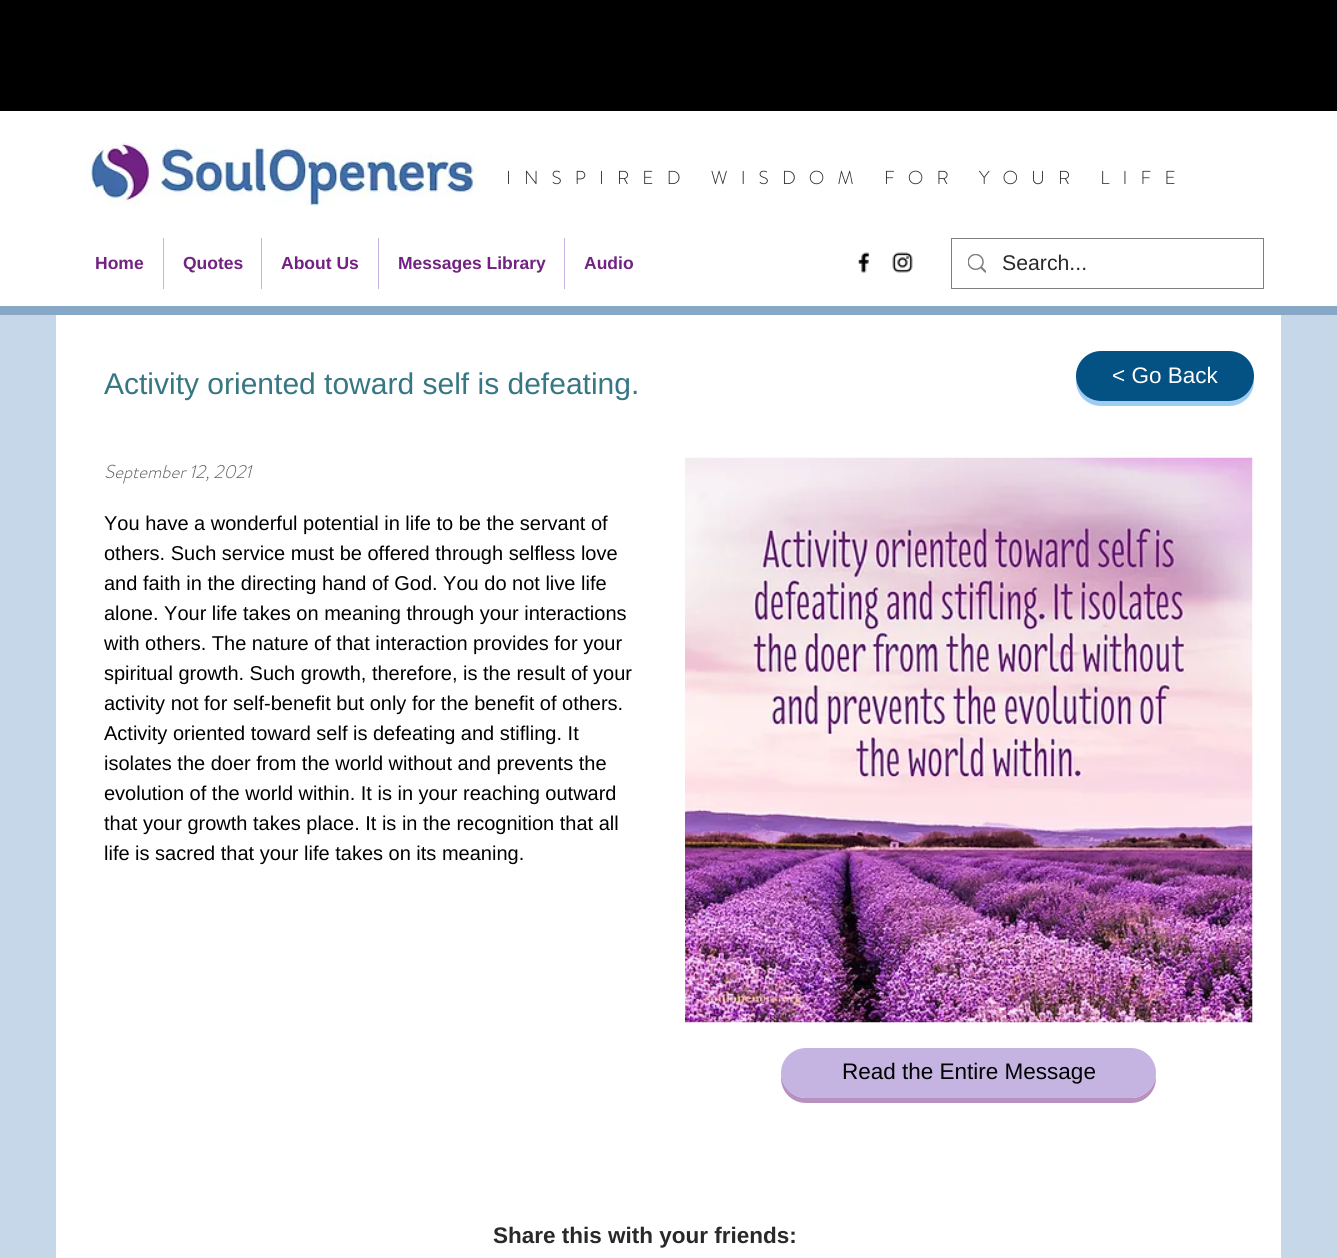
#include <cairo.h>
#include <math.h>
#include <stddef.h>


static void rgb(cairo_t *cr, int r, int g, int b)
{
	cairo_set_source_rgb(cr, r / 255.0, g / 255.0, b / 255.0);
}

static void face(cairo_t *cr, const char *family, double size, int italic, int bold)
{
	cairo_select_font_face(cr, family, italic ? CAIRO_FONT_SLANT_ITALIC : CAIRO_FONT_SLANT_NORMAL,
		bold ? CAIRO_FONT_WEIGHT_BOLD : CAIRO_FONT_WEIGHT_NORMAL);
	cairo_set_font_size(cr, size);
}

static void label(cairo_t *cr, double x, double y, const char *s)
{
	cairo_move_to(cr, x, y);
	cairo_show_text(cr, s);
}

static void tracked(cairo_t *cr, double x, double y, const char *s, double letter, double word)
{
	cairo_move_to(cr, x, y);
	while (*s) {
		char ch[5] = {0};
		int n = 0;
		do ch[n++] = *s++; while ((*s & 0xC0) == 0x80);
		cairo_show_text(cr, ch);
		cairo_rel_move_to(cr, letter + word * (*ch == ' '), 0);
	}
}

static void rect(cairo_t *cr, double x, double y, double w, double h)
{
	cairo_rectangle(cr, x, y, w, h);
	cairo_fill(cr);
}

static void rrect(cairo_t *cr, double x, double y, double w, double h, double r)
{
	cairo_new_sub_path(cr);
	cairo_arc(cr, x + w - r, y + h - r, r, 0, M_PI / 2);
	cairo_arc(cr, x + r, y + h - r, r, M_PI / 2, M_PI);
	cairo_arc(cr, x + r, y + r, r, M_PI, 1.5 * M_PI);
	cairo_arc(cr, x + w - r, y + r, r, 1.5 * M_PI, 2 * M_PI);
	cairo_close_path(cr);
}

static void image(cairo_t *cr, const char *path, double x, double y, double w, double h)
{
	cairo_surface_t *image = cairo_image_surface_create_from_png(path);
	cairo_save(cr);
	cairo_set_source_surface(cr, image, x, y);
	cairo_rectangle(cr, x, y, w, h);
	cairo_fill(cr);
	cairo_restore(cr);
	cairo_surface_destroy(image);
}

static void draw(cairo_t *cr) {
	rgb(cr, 197, 215, 232);
	cairo_paint(cr);
	rgb(cr, 255, 255, 255);
	rect(cr, 0, 111, 1337, 195);
	rgb(cr, 134, 167, 198);
	rect(cr, 0, 306, 1337, 9);
	rgb(cr, 0, 0, 0);
	rect(cr, 0, 0, 1337, 111);
	image(cr, "image0.png", 86, 142, 391, 64);
	face(cr, "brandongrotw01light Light", 18.75, 0, 0);
	rgb(cr, 41, 41, 41);
	tracked(cr, 506, 184, "INSPIRED WISDOM FOR YOUR LIFE", 13.1, 0);
	face(cr, "Liberation Sans", 17.5, 0, 1);
	rgb(cr, 114, 34, 130);
	label(cr, 95, 269, "Home");
	rgb(cr, 197, 180, 226);
	rect(cr, 163, 238, 1, 51);
	rgb(cr, 114, 34, 130);
	label(cr, 183, 269, "Quotes");
	rgb(cr, 197, 180, 226);
	rect(cr, 261, 238, 1, 51);
	rgb(cr, 114, 34, 130);
	label(cr, 281, 269, "About Us");
	rgb(cr, 197, 180, 226);
	rect(cr, 378, 238, 1, 51);
	rgb(cr, 114, 34, 130);
	label(cr, 398, 269, "Messages Library");
	rgb(cr, 197, 180, 226);
	rect(cr, 564, 238, 1, 51);
	rgb(cr, 114, 34, 130);
	label(cr, 584, 269, "Audio");
	image(cr, "image1.png", 858, 252, 12, 21);
	image(cr, "image2.png", 892, 252, 21, 21);
	cairo_rectangle(cr, 951.5, 238.5, 312, 50);
	rgb(cr, 127, 127, 127);
	cairo_set_line_width(cr, 1);
	cairo_stroke(cr);
	image(cr, "image3.png", 968, 254, 18, 19);
	face(cr, "Liberation Sans", 21.25, 0, 0);
	rgb(cr, 41, 41, 41);
	label(cr, 1002, 270, "Search...");
	rgb(cr, 255, 255, 255);
	rect(cr, 56, 315, 1225, 943);
	face(cr, "Liberation Sans", 30, 0, 0);
	rgb(cr, 55, 119, 132);
	label(cr, 104, 394, "Activity oriented toward self is defeating.");
	rgb(cr, 158, 205, 244);
	cairo_new_path(cr);
	cairo_move_to(cr, 1076, 377);
	cairo_line_to(cr, 1076, 381);
	cairo_curve_to(cr, 1076, 395, 1087, 406, 1101, 406);
	cairo_line_to(cr, 1229, 406);
	cairo_curve_to(cr, 1243, 406, 1254, 395, 1254, 381);
	cairo_line_to(cr, 1254, 377);
	cairo_curve_to(cr, 1253, 391, 1242, 401, 1229, 401);
	cairo_line_to(cr, 1101, 401);
	cairo_curve_to(cr, 1088, 401, 1077, 391, 1076, 377);
	cairo_close_path(cr);
	cairo_fill(cr);
	rgb(cr, 4, 81, 132);
	rrect(cr, 1076, 351, 178, 50, 25);
	cairo_fill(cr);
	face(cr, "Liberation Sans", 22.5, 0, 0);
	rgb(cr, 255, 255, 255);
	label(cr, 1112, 383, "< Go Back");
	face(cr, "brandongrotw01light Light", 18.75, 1, 0);
	rgb(cr, 96, 94, 94);
	label(cr, 104, 478, "September 12, 2021");
	image(cr, "image4.png", 685, 457, 568, 566);
	face(cr, "Liberation Sans", 20, 0, 0);
	rgb(cr, 0, 0, 0);
	label(cr, 104, 530, "You have a wonderful potential in life to be the servant of");
	label(cr, 104, 560, "others. Such service must be offered through selfless love");
	label(cr, 104, 590, "and faith in the directing hand of God. You do not live life");
	label(cr, 104, 620, "alone. Your life takes on meaning through your interactions");
	label(cr, 104, 650, "with others. The nature of that interaction provides for your");
	label(cr, 104, 680, "spiritual growth. Such growth, therefore, is the result of your");
	label(cr, 104, 710, "activity not for self-benefit but only for the benefit of others.");
	label(cr, 104, 740, "Activity oriented toward self is defeating and stifling. It");
	label(cr, 104, 770, "isolates the doer from the world without and prevents the");
	label(cr, 104, 800, "evolution of the world within. It is in your reaching outward");
	label(cr, 104, 830, "that your growth takes place. It is in the recognition that all");
	label(cr, 104, 860, "life is sacred that your life takes on its meaning.");
	rgb(cr, 185, 145, 193);
	cairo_new_path(cr);
	cairo_move_to(cr, 781, 1074);
	cairo_line_to(cr, 781, 1078);
	cairo_curve_to(cr, 781, 1092, 792, 1103, 806, 1103);
	cairo_line_to(cr, 1131, 1103);
	cairo_curve_to(cr, 1145, 1103, 1156, 1092, 1156, 1078);
	cairo_line_to(cr, 1156, 1076);
	cairo_curve_to(cr, 1154, 1088, 1144, 1098, 1131, 1098);
	cairo_line_to(cr, 806, 1098);
	cairo_curve_to(cr, 793, 1098, 782, 1087, 781, 1074);
	cairo_close_path(cr);
	cairo_fill(cr);
	rgb(cr, 197, 180, 226);
	rrect(cr, 781, 1048, 375, 50, 25);
	cairo_fill(cr);
	face(cr, "Liberation Sans", 22.5, 0, 0);
	rgb(cr, 0, 0, 0);
	label(cr, 842, 1079, "Read the Entire Message");
	face(cr, "Liberation Sans", 22.5, 0, 1);
	rgb(cr, 41, 41, 41);
	label(cr, 493, 1243, "Share this with your friends:");
}

int main(void) {
	cairo_surface_t *surface = cairo_image_surface_create(CAIRO_FORMAT_RGB24, 1337, 1258);
	cairo_t *cr = cairo_create(surface);
	cairo_font_options_t *options = cairo_font_options_create();
	cairo_font_options_set_hint_metrics(options, CAIRO_HINT_METRICS_OFF);
	cairo_font_options_set_hint_style(options, CAIRO_HINT_STYLE_NONE);
	cairo_set_font_options(cr, options);
	cairo_set_miter_limit(cr, 4);
	draw(cr);
	cairo_surface_write_to_png(surface, "render.png");
	cairo_font_options_destroy(options);
	cairo_destroy(cr);
	cairo_surface_destroy(surface);
	return 0;
}
